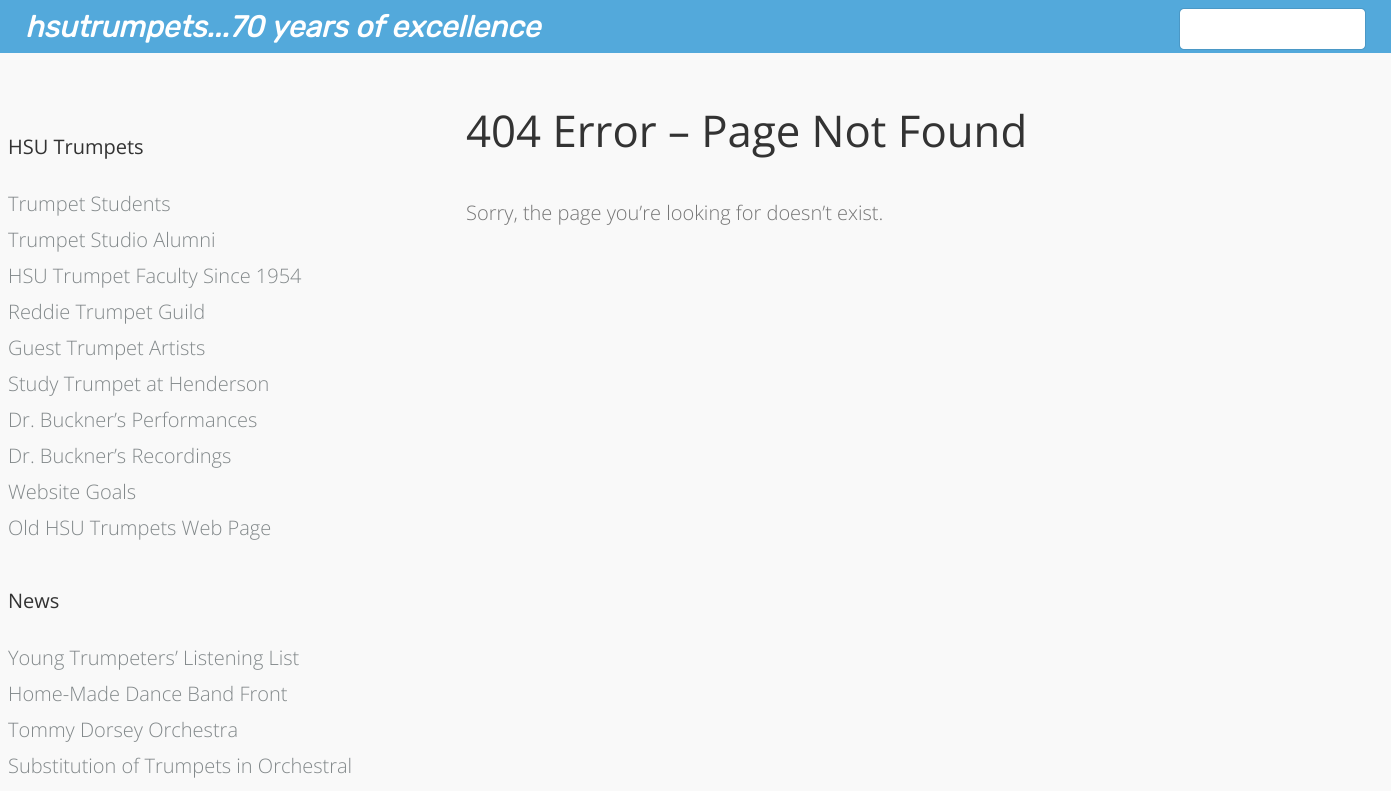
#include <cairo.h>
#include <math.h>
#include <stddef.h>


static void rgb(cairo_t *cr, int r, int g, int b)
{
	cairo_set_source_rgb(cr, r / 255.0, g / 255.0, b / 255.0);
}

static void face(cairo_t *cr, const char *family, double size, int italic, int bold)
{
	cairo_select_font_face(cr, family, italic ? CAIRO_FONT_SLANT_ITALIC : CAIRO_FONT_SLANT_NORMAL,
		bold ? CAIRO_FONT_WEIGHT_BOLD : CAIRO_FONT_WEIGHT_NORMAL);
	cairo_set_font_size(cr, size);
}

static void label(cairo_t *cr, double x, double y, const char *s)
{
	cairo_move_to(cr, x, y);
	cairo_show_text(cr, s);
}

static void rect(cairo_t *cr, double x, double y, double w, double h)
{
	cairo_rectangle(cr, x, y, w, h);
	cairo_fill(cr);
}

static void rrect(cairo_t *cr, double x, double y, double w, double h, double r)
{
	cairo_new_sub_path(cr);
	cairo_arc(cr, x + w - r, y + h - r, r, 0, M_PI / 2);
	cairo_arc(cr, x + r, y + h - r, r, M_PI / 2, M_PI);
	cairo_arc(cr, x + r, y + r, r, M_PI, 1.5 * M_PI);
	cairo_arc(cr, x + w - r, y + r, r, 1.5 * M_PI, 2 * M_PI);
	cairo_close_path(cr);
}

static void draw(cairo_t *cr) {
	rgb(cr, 249, 249, 249);
	cairo_paint(cr);
	rgb(cr, 83, 169, 219);
	rect(cr, 0, 0, 1391, 53);
	face(cr, "Rubik", 30, 1, 1);
	rgb(cr, 255, 255, 255);
	label(cr, 25, 37, "hsutrumpets...70 years of excellence");
	rrect(cr, 1180, 9, 185, 40, 4);
	cairo_fill(cr);
	rrect(cr, 1179.5, 8.5, 186, 41, 4.5);
	cairo_set_source_rgba(cr, 0, 0, 0, 0.1);
	cairo_set_line_width(cr, 1);
	cairo_stroke(cr);
	face(cr, "Open Sans", 20, 0, 0);
	rgb(cr, 51, 51, 51);
	label(cr, 8, 154, "HSU Trumpets");
	face(cr, "Open Sans Light", 20, 0, 0);
	rgb(cr, 130, 136, 138);
	label(cr, 8, 211, "Trumpet Students");
	label(cr, 8, 247, "Trumpet Studio Alumni");
	label(cr, 8, 283, "HSU Trumpet Faculty Since 1954");
	label(cr, 8, 319, "Reddie Trumpet Guild");
	label(cr, 8, 355, "Guest Trumpet Artists");
	label(cr, 8, 391, "Study Trumpet at Henderson");
	label(cr, 8, 427, "Dr. Buckner’s Performances");
	label(cr, 8, 463, "Dr. Buckner’s Recordings");
	label(cr, 8, 499, "Website Goals");
	label(cr, 8, 535, "Old HSU Trumpets Web Page");
	face(cr, "Open Sans", 20, 0, 0);
	rgb(cr, 51, 51, 51);
	label(cr, 8, 608, "News");
	face(cr, "Open Sans Light", 20, 0, 0);
	rgb(cr, 130, 136, 138);
	label(cr, 8, 665, "Young Trumpeters’ Listening List");
	label(cr, 8, 701, "Home-Made Dance Band Front");
	label(cr, 8, 737, "Tommy Dorsey Orchestra");
	label(cr, 8, 773, "Substitution of Trumpets in Orchestral");
	face(cr, "Open Sans", 43.75, 0, 0);
	rgb(cr, 51, 51, 51);
	label(cr, 466, 147, "404 Error – Page Not Found");
	face(cr, "Open Sans Light", 20, 0, 0);
	rgb(cr, 117, 117, 117);
	label(cr, 466, 220, "Sorry, the page you’re looking for doesn’t exist.");
}

int main(void) {
	cairo_surface_t *surface = cairo_image_surface_create(CAIRO_FORMAT_RGB24, 1391, 791);
	cairo_t *cr = cairo_create(surface);
	cairo_font_options_t *options = cairo_font_options_create();
	cairo_font_options_set_hint_metrics(options, CAIRO_HINT_METRICS_OFF);
	cairo_font_options_set_hint_style(options, CAIRO_HINT_STYLE_NONE);
	cairo_set_font_options(cr, options);
	cairo_set_miter_limit(cr, 4);
	draw(cr);
	cairo_surface_write_to_png(surface, "render.png");
	cairo_font_options_destroy(options);
	cairo_destroy(cr);
	cairo_surface_destroy(surface);
	return 0;
}
